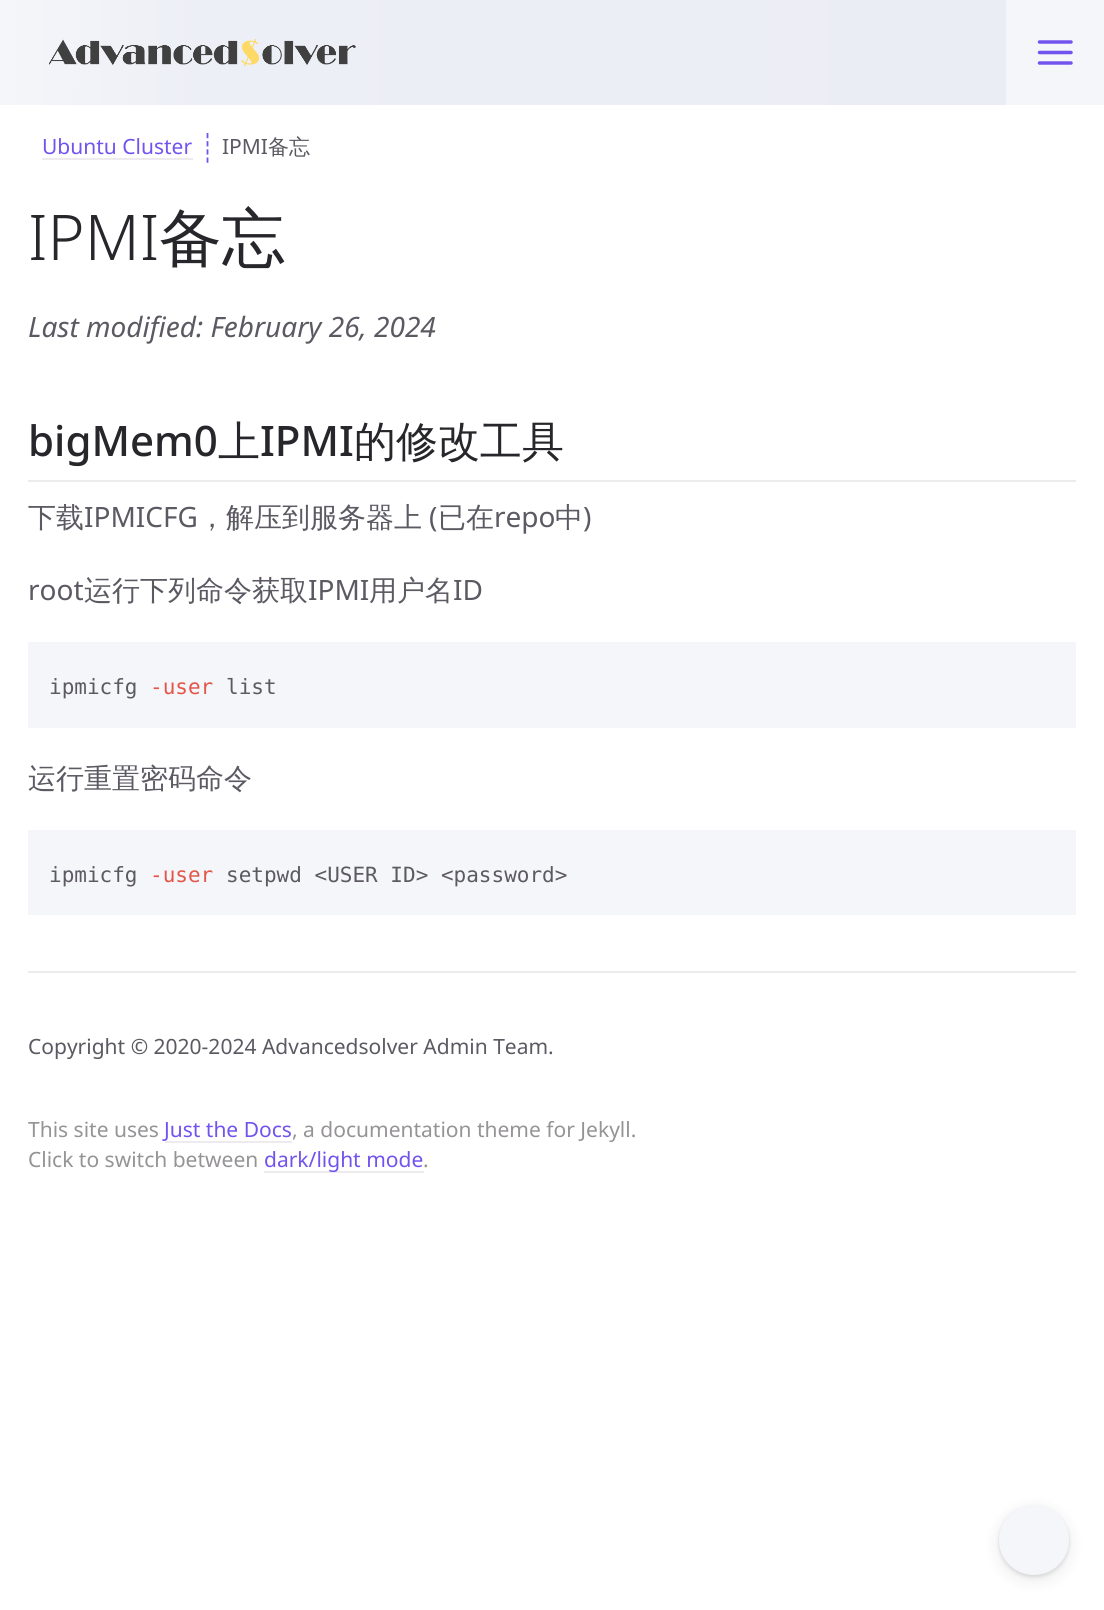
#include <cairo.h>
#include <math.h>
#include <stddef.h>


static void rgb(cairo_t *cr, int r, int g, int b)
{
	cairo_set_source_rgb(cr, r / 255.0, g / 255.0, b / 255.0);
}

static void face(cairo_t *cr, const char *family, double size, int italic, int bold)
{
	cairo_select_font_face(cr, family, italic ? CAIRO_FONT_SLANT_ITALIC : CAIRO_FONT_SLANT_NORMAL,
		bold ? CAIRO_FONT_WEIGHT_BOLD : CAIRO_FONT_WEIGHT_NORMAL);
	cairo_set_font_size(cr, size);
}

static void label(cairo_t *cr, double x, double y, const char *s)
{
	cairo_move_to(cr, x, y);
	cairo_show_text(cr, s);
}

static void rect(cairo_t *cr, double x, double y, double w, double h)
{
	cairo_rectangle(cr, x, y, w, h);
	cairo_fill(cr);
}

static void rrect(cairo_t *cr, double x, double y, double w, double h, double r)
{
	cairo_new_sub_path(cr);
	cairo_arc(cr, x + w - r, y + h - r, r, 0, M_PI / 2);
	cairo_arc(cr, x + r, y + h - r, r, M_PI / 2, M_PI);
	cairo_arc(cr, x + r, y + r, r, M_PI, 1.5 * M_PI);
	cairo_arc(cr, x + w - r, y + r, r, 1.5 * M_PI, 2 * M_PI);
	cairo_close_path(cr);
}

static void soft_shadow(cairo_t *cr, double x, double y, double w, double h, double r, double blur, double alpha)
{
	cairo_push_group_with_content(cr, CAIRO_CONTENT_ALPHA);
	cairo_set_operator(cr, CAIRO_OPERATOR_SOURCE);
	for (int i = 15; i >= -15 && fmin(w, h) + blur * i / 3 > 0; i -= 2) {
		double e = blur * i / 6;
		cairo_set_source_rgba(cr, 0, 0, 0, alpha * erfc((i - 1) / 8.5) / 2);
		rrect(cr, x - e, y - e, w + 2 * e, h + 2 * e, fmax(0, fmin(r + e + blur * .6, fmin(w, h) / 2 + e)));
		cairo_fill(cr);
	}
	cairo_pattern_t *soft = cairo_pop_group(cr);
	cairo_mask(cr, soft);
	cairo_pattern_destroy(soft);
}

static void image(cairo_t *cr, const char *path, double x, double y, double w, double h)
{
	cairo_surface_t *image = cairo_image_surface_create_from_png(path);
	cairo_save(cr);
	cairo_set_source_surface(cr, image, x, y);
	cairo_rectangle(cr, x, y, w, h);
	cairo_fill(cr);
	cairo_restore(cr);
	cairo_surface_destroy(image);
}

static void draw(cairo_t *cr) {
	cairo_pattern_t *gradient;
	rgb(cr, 255, 255, 255);
	cairo_paint(cr);
	cairo_new_path(cr);
	cairo_move_to(cr, 207.5, 133);
	cairo_line_to(cr, 207.5, 163);
	rgb(cr, 114, 83, 237);
	cairo_set_line_width(cr, 1.8);
	cairo_set_dash(cr, (double[]){5.25, 2.92}, 2, 0);
	cairo_stroke(cr);
	face(cr, "Noto Sans", 21, 0, 0);
	label(cr, 42, 154, "Ubuntu Cluster");
	rgb(cr, 238, 235, 238);
	rect(cr, 42, 158, 151, 2);
	rgb(cr, 92, 89, 98);
	label(cr, 222, 154, "IPMI");
	face(cr, "WenQuanYi Zen Hei Medium", 21, 0, 0);
	label(cr, 268, 154, "备忘");
	face(cr, "Noto Sans Light", 63, 0, 0);
	rgb(cr, 39, 38, 43);
	label(cr, 28, 260, "IPMI");
	face(cr, "WenQuanYi Zen Hei Medium", 63, 0, 0);
	label(cr, 159, 260, "备忘");
	face(cr, "Noto Sans", 28, 1, 0);
	rgb(cr, 92, 89, 98);
	label(cr, 28, 337, "Last modified: February 26, 2024");
	face(cr, "Noto Sans Medium", 42, 0, 0);
	rgb(cr, 39, 38, 43);
	label(cr, 28, 456, "bigMem0");
	face(cr, "WenQuanYi Zen Hei Medium", 42, 0, 0);
	label(cr, 218, 456, "上");
	face(cr, "Noto Sans Medium", 42, 0, 0);
	label(cr, 260, 456, "IPMI");
	face(cr, "WenQuanYi Zen Hei Medium", 42, 0, 0);
	label(cr, 354, 456, "的修改工具");
	rgb(cr, 238, 235, 238);
	rect(cr, 28, 480, 1048, 2);
	face(cr, "WenQuanYi Zen Hei Medium", 28, 0, 0);
	rgb(cr, 92, 89, 98);
	label(cr, 28, 527, "下载");
	face(cr, "Noto Sans", 28, 0, 0);
	label(cr, 84, 527, "IPMICFG");
	face(cr, "WenQuanYi Zen Hei Medium", 28, 0, 0);
	label(cr, 198, 527, "，解压到服务器上");
	face(cr, "Noto Sans", 28, 0, 0);
	label(cr, 429, 527, "(");
	face(cr, "WenQuanYi Zen Hei Medium", 28, 0, 0);
	label(cr, 438, 527, "已在");
	face(cr, "Noto Sans", 28, 0, 0);
	label(cr, 494, 527, "repo");
	face(cr, "WenQuanYi Zen Hei Medium", 28, 0, 0);
	label(cr, 555, 527, "中");
	face(cr, "Noto Sans", 28, 0, 0);
	label(cr, 583, 527, ")");
	label(cr, 28, 600, "root");
	face(cr, "WenQuanYi Zen Hei Medium", 28, 0, 0);
	label(cr, 84, 600, "运行下列命令获取");
	face(cr, "Noto Sans", 28, 0, 0);
	label(cr, 308, 600, "IPMI");
	face(cr, "WenQuanYi Zen Hei Medium", 28, 0, 0);
	label(cr, 369, 600, "用户名");
	face(cr, "Noto Sans", 28, 0, 0);
	label(cr, 453, 600, "ID");
	rgb(cr, 245, 246, 250);
	rect(cr, 28, 642, 1048, 86);
	face(cr, "DejaVu Sans Mono", 21, 0, 0);
	rgb(cr, 92, 89, 98);
	label(cr, 49, 694, "ipmicfg");
	rgb(cr, 227, 85, 73);
	label(cr, 150, 694, "-user");
	rgb(cr, 92, 89, 98);
	label(cr, 226, 694, "list");
	face(cr, "WenQuanYi Zen Hei Medium", 28, 0, 0);
	label(cr, 28, 788, "运行重置密码命令");
	rgb(cr, 245, 246, 250);
	rect(cr, 28, 830, 1048, 85);
	face(cr, "DejaVu Sans Mono", 21, 0, 0);
	rgb(cr, 92, 89, 98);
	label(cr, 49, 882, "ipmicfg");
	rgb(cr, 227, 85, 73);
	label(cr, 150, 882, "-user");
	rgb(cr, 92, 89, 98);
	label(cr, 226, 882, "setpwd <USER ID> <password>");
	rgb(cr, 238, 235, 238);
	rect(cr, 28, 971, 1048, 2);
	face(cr, "Noto Sans", 21, 0, 0);
	rgb(cr, 92, 89, 98);
	label(cr, 28, 1054, "Copyright © 2020-2024 Advancedsolver Admin Team.");
	rgb(cr, 0, 0, 0);
	soft_shadow(cr, 999, 1510, 70, 70, 35, 9, 0.08);
	soft_shadow(cr, 999, 1507, 70, 70, 35, 2, 0.12);
	rgb(cr, 245, 246, 250);
	cairo_arc(cr, 1034, 1540, 35, 0, 2 * M_PI);
	cairo_fill(cr);
	rect(cr, 1006, 0, 98, 105);
	gradient = cairo_pattern_create_linear(1006, 53, 0, 52);
	cairo_pattern_add_color_stop_rgba(gradient, 0, 0.922, 0.929, 0.961, 1);
	cairo_pattern_add_color_stop_rgba(gradient, 0.8, 0.929, 0.937, 0.965, 1);
	cairo_pattern_add_color_stop_rgba(gradient, 1, 0.961, 0.965, 0.98, 1);
	cairo_set_source(cr, gradient);
	cairo_pattern_destroy(gradient);
	rect(cr, 0, 0, 1006, 105);
	image(cr, "image0.png", 49, 39, 307, 28);
	cairo_new_path(cr);
	cairo_move_to(cr, 1039.5, 52.5);
	cairo_line_to(cr, 1071, 52.5);
	cairo_move_to(cr, 1039.5, 42);
	cairo_line_to(cr, 1071, 42);
	cairo_move_to(cr, 1039.5, 63);
	cairo_line_to(cr, 1071, 63);
	rgb(cr, 114, 83, 237);
	cairo_set_line_width(cr, 3.5);
	cairo_set_line_cap(cr, CAIRO_LINE_CAP_ROUND);
	cairo_set_line_join(cr, CAIRO_LINE_JOIN_ROUND);
	cairo_set_dash(cr, NULL, 0, 0);
	cairo_stroke(cr);
	rgb(cr, 149, 147, 150);
	label(cr, 28, 1137, "This site uses");
	rgb(cr, 114, 83, 237);
	label(cr, 164, 1137, "Just the Docs");
	rgb(cr, 238, 235, 238);
	rect(cr, 165, 1141, 127, 2);
	rgb(cr, 149, 147, 150);
	label(cr, 292, 1137, ", a documentation theme for Jekyll.");
	label(cr, 28, 1167, "Click to switch between");
	rgb(cr, 238, 235, 238);
	rect(cr, 264, 1171, 160, 2);
	rgb(cr, 114, 83, 237);
	label(cr, 264, 1167, "dark/light mode");
	rgb(cr, 149, 147, 150);
	label(cr, 423, 1167, ".");
}

int main(void) {
	cairo_surface_t *surface = cairo_image_surface_create(CAIRO_FORMAT_RGB24, 1104, 1610);
	cairo_t *cr = cairo_create(surface);
	cairo_font_options_t *options = cairo_font_options_create();
	cairo_font_options_set_hint_metrics(options, CAIRO_HINT_METRICS_OFF);
	cairo_font_options_set_hint_style(options, CAIRO_HINT_STYLE_NONE);
	cairo_set_font_options(cr, options);
	cairo_set_miter_limit(cr, 4);
	draw(cr);
	cairo_surface_write_to_png(surface, "render.png");
	cairo_font_options_destroy(options);
	cairo_destroy(cr);
	cairo_surface_destroy(surface);
	return 0;
}
